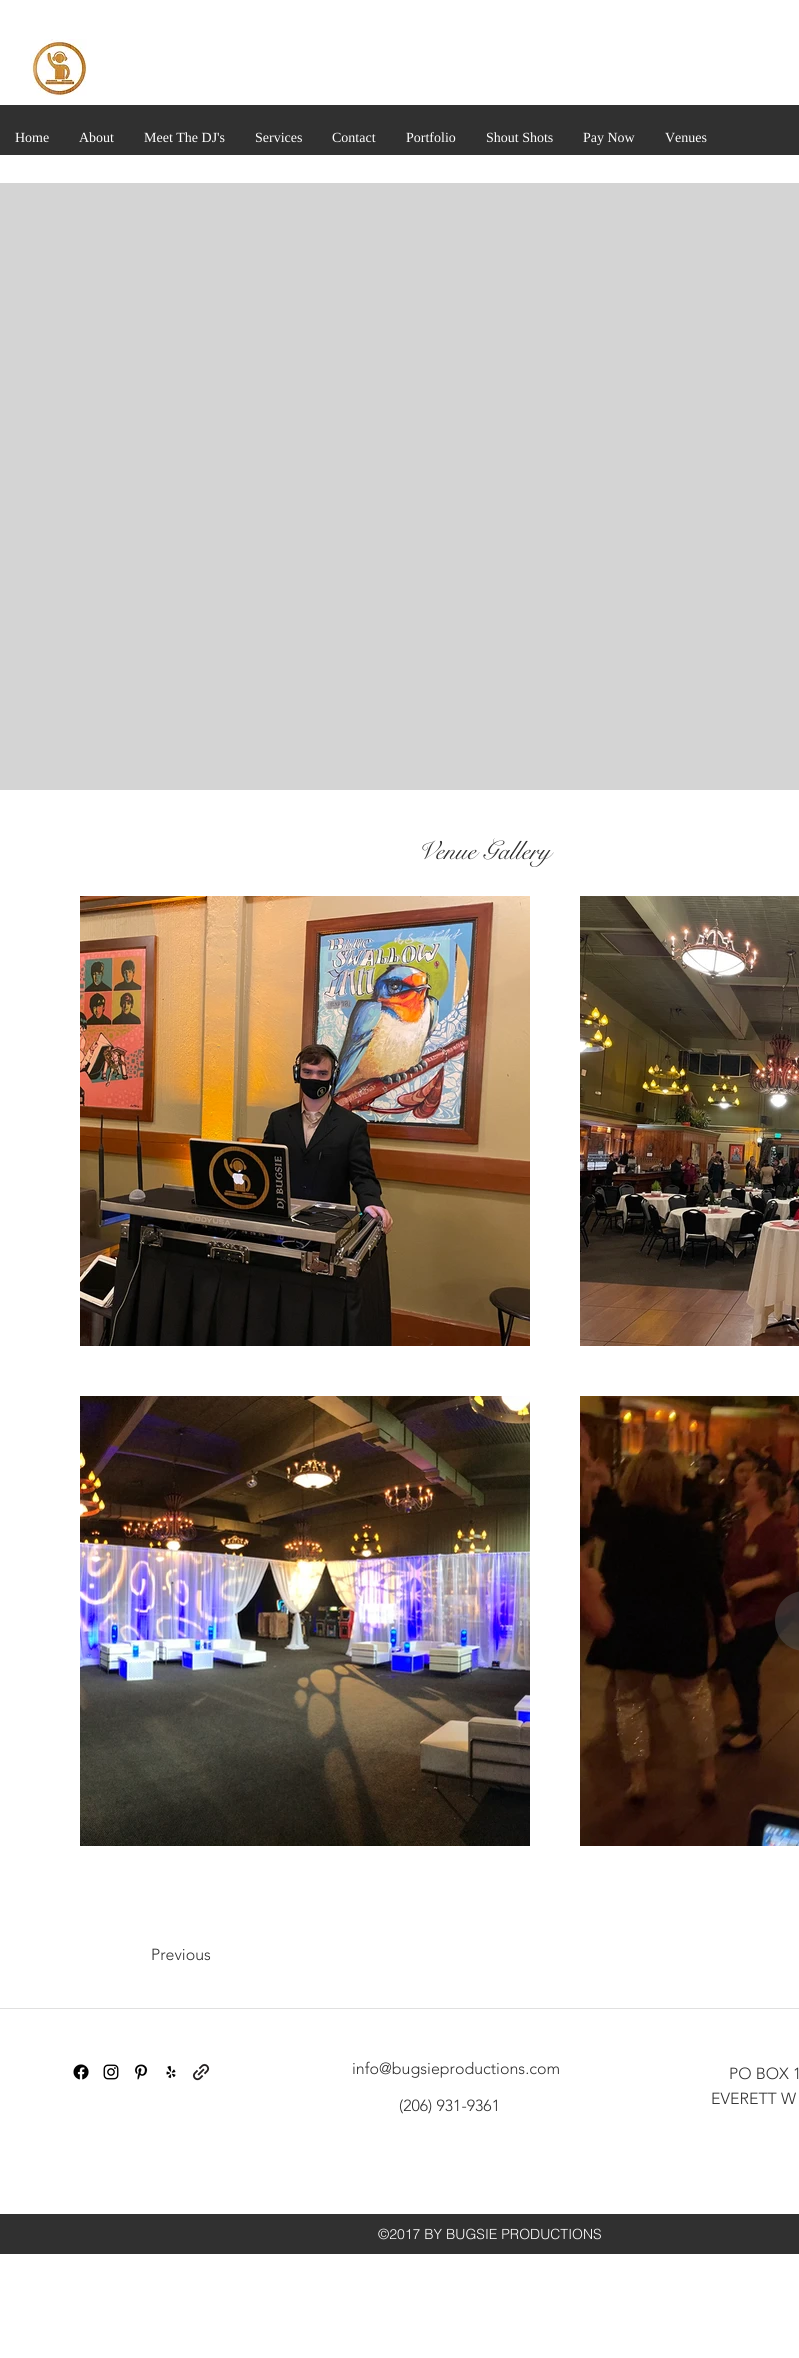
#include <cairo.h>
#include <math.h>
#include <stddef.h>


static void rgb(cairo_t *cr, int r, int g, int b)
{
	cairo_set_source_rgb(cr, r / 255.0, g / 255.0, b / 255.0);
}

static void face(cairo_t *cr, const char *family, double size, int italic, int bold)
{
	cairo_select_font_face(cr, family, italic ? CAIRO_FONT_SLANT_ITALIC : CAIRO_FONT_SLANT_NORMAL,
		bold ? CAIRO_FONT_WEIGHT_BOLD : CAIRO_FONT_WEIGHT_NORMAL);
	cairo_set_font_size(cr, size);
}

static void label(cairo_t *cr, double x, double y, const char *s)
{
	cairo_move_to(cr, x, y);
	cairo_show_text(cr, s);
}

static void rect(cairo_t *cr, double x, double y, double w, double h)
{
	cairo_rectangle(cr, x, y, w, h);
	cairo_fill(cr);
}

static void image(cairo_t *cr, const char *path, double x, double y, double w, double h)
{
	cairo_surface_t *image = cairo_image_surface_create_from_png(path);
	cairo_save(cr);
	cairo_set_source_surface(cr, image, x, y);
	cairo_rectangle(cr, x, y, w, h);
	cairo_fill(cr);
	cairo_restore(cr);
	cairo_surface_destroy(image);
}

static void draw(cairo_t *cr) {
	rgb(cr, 255, 255, 255);
	cairo_paint(cr);
	rgb(cr, 48, 48, 48);
	rect(cr, 0, 105, 799, 50);
	image(cr, "image0.png", 30, 39, 57, 57);
	face(cr, "Liberation Serif", 14, 0, 0);
	rgb(cr, 255, 255, 255);
	label(cr, 15, 142, "Home");
	label(cr, 79, 142, "About");
	label(cr, 144, 142, "Meet The DJ's");
	label(cr, 255, 142, "Services");
	label(cr, 332, 142, "Contact");
	label(cr, 406, 142, "Portfolio");
	label(cr, 486, 142, "Shout Shots");
	label(cr, 583, 142, "Pay Now");
	label(cr, 665, 142, "Venues");
	rgb(cr, 212, 212, 212);
	rect(cr, 0, 183, 799, 607);
	face(cr, "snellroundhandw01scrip", 26, 0, 0);
	rgb(cr, 48, 48, 48);
	label(cr, 417, 859, "Venue Gallery");
	image(cr, "image1.png", 80, 896, 450, 450);
	image(cr, "image2.png", 580, 896, 219, 450);
	image(cr, "image3.png", 80, 1396, 450, 450);
	image(cr, "image4.png", 580, 1396, 219, 450);
	cairo_set_source_rgba(cr, 0.376, 0.376, 0.376, 0.42);
	cairo_set_fill_rule(cr, CAIRO_FILL_RULE_EVEN_ODD);
	cairo_new_path(cr);
	cairo_move_to(cr, 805, 1591);
	cairo_curve_to(cr, 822, 1591, 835, 1604, 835, 1621);
	cairo_curve_to(cr, 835, 1638, 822, 1651, 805, 1651);
	cairo_curve_to(cr, 788, 1651, 775, 1638, 775, 1621);
	cairo_curve_to(cr, 775, 1604, 788, 1591, 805, 1591);
	cairo_close_path(cr);
	cairo_fill(cr);
	face(cr, "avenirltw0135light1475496 Light", 16, 0, 0);
	rgb(cr, 48, 48, 48);
	label(cr, 151, 1960, "Previous");
	rgb(cr, 224, 224, 224);
	rect(cr, 0, 2008, 799, 1);
	image(cr, "image5.png", 73, 2064, 16, 16);
	image(cr, "image6.png", 103, 2064, 16, 16);
	image(cr, "image7.png", 134, 2064, 14, 16);
	image(cr, "image8.png", 166, 2065, 10, 14);
	image(cr, "image9.png", 192, 2063, 18, 18);
	rgb(cr, 48, 48, 48);
	label(cr, 352, 2074, "info@bugsieproductions.com");
	label(cr, 729, 2079, "PO BOX 1");
	label(cr, 711, 2104, "EVERETT W");
	label(cr, 399, 2111, "(206) 931-9361");
	rect(cr, 0, 2214, 799, 40);
	face(cr, "helvetica Light", 14, 0, 0);
	rgb(cr, 255, 255, 255);
	label(cr, 378, 2239, "©2017 BY BUGSIE PRODUCTIONS");
}

int main(void) {
	cairo_surface_t *surface = cairo_image_surface_create(CAIRO_FORMAT_RGB24, 799, 2358);
	cairo_t *cr = cairo_create(surface);
	cairo_font_options_t *options = cairo_font_options_create();
	cairo_font_options_set_hint_metrics(options, CAIRO_HINT_METRICS_OFF);
	cairo_font_options_set_hint_style(options, CAIRO_HINT_STYLE_NONE);
	cairo_set_font_options(cr, options);
	cairo_set_miter_limit(cr, 4);
	draw(cr);
	cairo_surface_write_to_png(surface, "render.png");
	cairo_font_options_destroy(options);
	cairo_destroy(cr);
	cairo_surface_destroy(surface);
	return 0;
}
